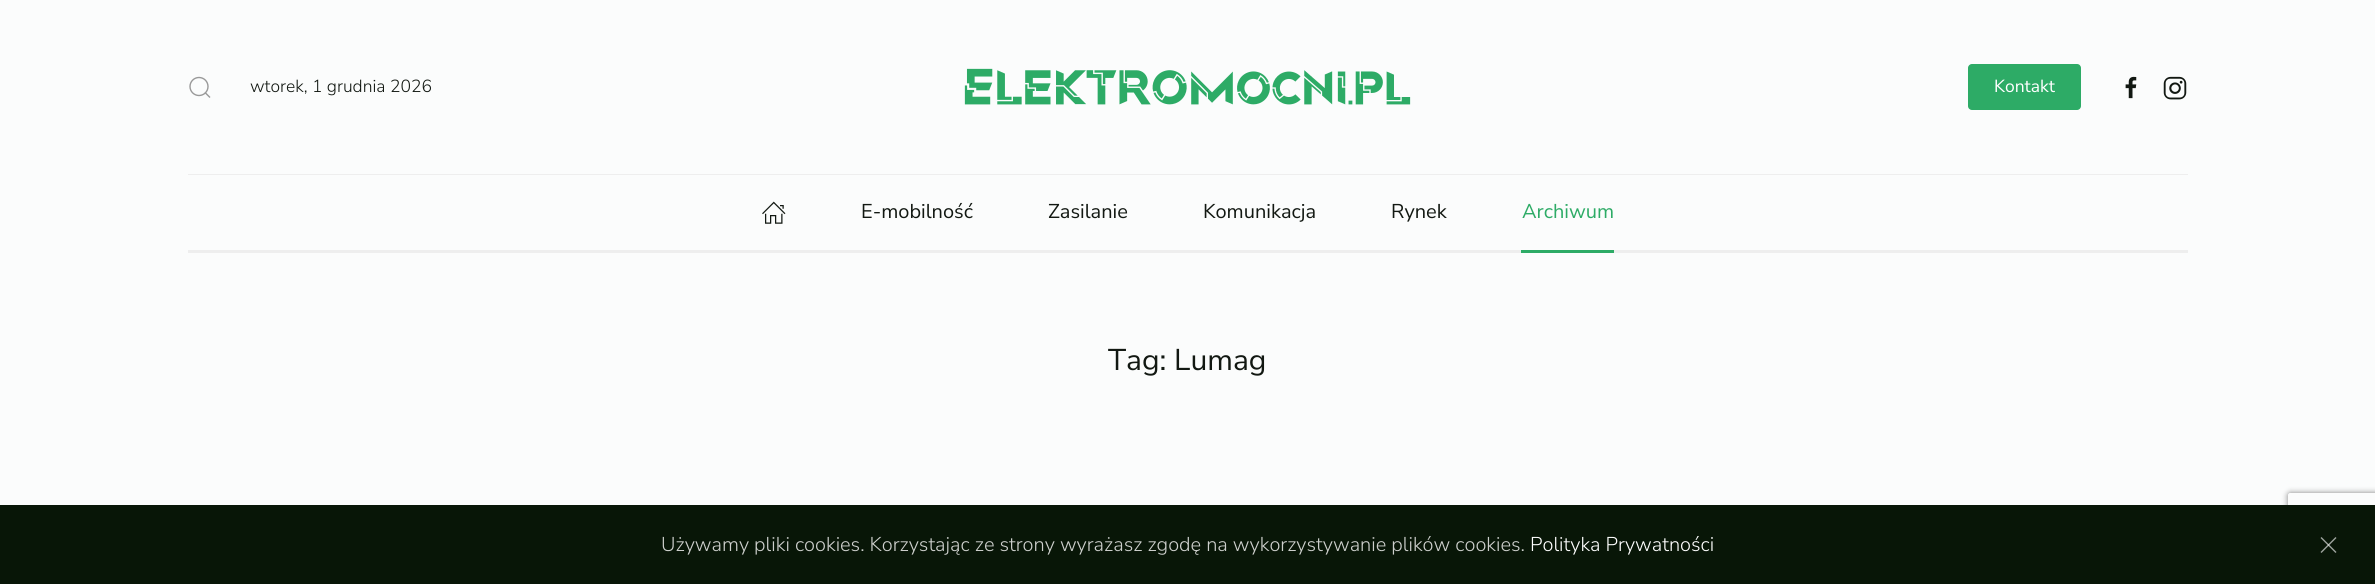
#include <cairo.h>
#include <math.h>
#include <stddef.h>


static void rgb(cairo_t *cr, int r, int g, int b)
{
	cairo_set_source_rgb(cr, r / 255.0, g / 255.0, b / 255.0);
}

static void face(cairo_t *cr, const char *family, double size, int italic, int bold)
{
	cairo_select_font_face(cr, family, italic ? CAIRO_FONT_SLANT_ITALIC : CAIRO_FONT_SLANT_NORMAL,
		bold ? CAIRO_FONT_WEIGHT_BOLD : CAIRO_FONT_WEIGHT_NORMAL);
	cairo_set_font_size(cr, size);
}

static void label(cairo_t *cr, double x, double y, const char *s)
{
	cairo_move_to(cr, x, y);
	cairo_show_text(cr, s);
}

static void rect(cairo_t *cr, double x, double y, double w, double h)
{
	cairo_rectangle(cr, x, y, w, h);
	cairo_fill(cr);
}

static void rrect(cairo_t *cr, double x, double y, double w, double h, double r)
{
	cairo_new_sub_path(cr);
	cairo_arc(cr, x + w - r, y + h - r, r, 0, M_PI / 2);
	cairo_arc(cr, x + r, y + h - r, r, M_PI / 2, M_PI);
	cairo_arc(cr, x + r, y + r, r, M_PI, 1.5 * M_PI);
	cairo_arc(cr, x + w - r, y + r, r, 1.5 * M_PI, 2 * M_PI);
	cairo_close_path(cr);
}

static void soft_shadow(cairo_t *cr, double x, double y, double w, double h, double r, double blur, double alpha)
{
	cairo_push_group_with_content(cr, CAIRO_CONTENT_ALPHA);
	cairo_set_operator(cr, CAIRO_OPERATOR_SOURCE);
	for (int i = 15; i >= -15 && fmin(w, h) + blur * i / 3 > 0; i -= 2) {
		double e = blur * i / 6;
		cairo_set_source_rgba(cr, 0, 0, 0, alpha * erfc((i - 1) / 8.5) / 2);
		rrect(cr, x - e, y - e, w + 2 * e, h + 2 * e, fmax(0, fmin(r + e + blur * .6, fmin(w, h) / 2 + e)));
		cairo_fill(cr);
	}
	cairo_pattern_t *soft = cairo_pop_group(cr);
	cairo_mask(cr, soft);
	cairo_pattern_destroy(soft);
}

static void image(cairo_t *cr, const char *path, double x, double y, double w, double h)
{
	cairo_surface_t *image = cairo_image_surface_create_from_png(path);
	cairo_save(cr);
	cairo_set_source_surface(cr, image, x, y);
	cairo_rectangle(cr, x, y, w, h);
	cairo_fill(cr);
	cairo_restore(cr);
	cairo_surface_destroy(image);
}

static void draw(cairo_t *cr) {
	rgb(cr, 251, 252, 252);
	cairo_paint(cr);
	cairo_arc(cr, 199, 86.5, 9, 0, 2 * M_PI);
	rgb(cr, 153, 153, 153);
	cairo_set_line_width(cr, 1.4);
	cairo_stroke(cr);
	cairo_new_path(cr);
	cairo_move_to(cr, 205, 92.5);
	cairo_line_to(cr, 210, 97.5);
	cairo_close_path(cr);
	cairo_stroke(cr);
	face(cr, "Nunito Sans Light", 17.5, 0, 0);
	rgb(cr, 18, 24, 18);
	label(cr, 250, 92, "wtorek, 1 grudnia 2026");
	image(cr, "image0.png", 964, 68, 447, 37);
	rgb(cr, 45, 171, 102);
	rrect(cr, 1968, 64, 113, 46, 4);
	cairo_fill(cr);
	face(cr, "Nunito Sans", 17.5, 0, 0);
	rgb(cr, 255, 255, 255);
	label(cr, 1994, 92, "Kontakt");
	image(cr, "image1.png", 2125, 76, 12, 23);
	image(cr, "image2.png", 2163, 76, 24, 24);
	rgb(cr, 238, 238, 238);
	rect(cr, 188, 174, 2000, 1);
	rect(cr, 188, 250, 2000, 3);
	image(cr, "image3.png", 762, 201, 24, 23);
	face(cr, "Nunito Sans", 20, 0, 0);
	rgb(cr, 18, 24, 18);
	label(cr, 861, 218, "E-mobilność");
	label(cr, 1048, 218, "Zasilanie");
	label(cr, 1203, 218, "Komunikacja");
	label(cr, 1391, 218, "Rynek");
	rgb(cr, 45, 171, 102);
	label(cr, 1522, 218, "Archiwum");
	rect(cr, 1521, 250, 93, 3);
	face(cr, "Nunito Sans", 30, 0, 0);
	rgb(cr, 18, 24, 18);
	label(cr, 1108, 370, "Tag: Lumag");
	cairo_save(cr);
	cairo_set_fill_rule(cr, CAIRO_FILL_RULE_EVEN_ODD);
	cairo_new_path(cr);
	cairo_move_to(cr, 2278, 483);
	cairo_line_to(cr, 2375, 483);
	cairo_line_to(cr, 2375, 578);
	cairo_line_to(cr, 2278, 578);
	cairo_close_path(cr);
	cairo_move_to(cr, 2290.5, 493);
	cairo_line_to(cr, 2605.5, 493);
	cairo_curve_to(cr, 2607, 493, 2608, 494, 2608, 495.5);
	cairo_line_to(cr, 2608, 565.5);
	cairo_curve_to(cr, 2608, 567, 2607, 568, 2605.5, 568);
	cairo_line_to(cr, 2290.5, 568);
	cairo_curve_to(cr, 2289, 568, 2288, 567, 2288, 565.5);
	cairo_line_to(cr, 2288, 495.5);
	cairo_curve_to(cr, 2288, 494, 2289, 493, 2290.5, 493);
	cairo_close_path(cr);
	cairo_clip(cr);
	rgb(cr, 128, 128, 128);
	soft_shadow(cr, 2288, 493, 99, 75, 2.5, 3, 1);
	cairo_restore(cr);
	rgb(cr, 8, 22, 7);
	rect(cr, 0, 505, 2375, 79);
	face(cr, "Nunito Sans Light", 20, 0, 0);
	rgb(cr, 206, 208, 205);
	label(cr, 661, 551, "Używamy pliki cookies. Korzystając ze strony wyrażasz zgodę na wykorzystywanie plików cookies.");
	rgb(cr, 255, 255, 255);
	label(cr, 1530, 551, "Polityka Prywatności");
	cairo_new_path(cr);
	cairo_move_to(cr, 2321, 537.5);
	cairo_line_to(cr, 2336, 552.5);
	rgb(cr, 156, 162, 156);
	cairo_stroke(cr);
	cairo_new_path(cr);
	cairo_move_to(cr, 2336, 537.5);
	cairo_line_to(cr, 2321, 552.5);
	cairo_set_source_rgba(cr, 1, 1, 1, 0.6);
	cairo_stroke(cr);
}

int main(void) {
	cairo_surface_t *surface = cairo_image_surface_create(CAIRO_FORMAT_RGB24, 2375, 584);
	cairo_t *cr = cairo_create(surface);
	cairo_font_options_t *options = cairo_font_options_create();
	cairo_font_options_set_hint_metrics(options, CAIRO_HINT_METRICS_OFF);
	cairo_font_options_set_hint_style(options, CAIRO_HINT_STYLE_NONE);
	cairo_set_font_options(cr, options);
	cairo_set_miter_limit(cr, 4);
	draw(cr);
	cairo_surface_write_to_png(surface, "render.png");
	cairo_font_options_destroy(options);
	cairo_destroy(cr);
	cairo_surface_destroy(surface);
	return 0;
}
